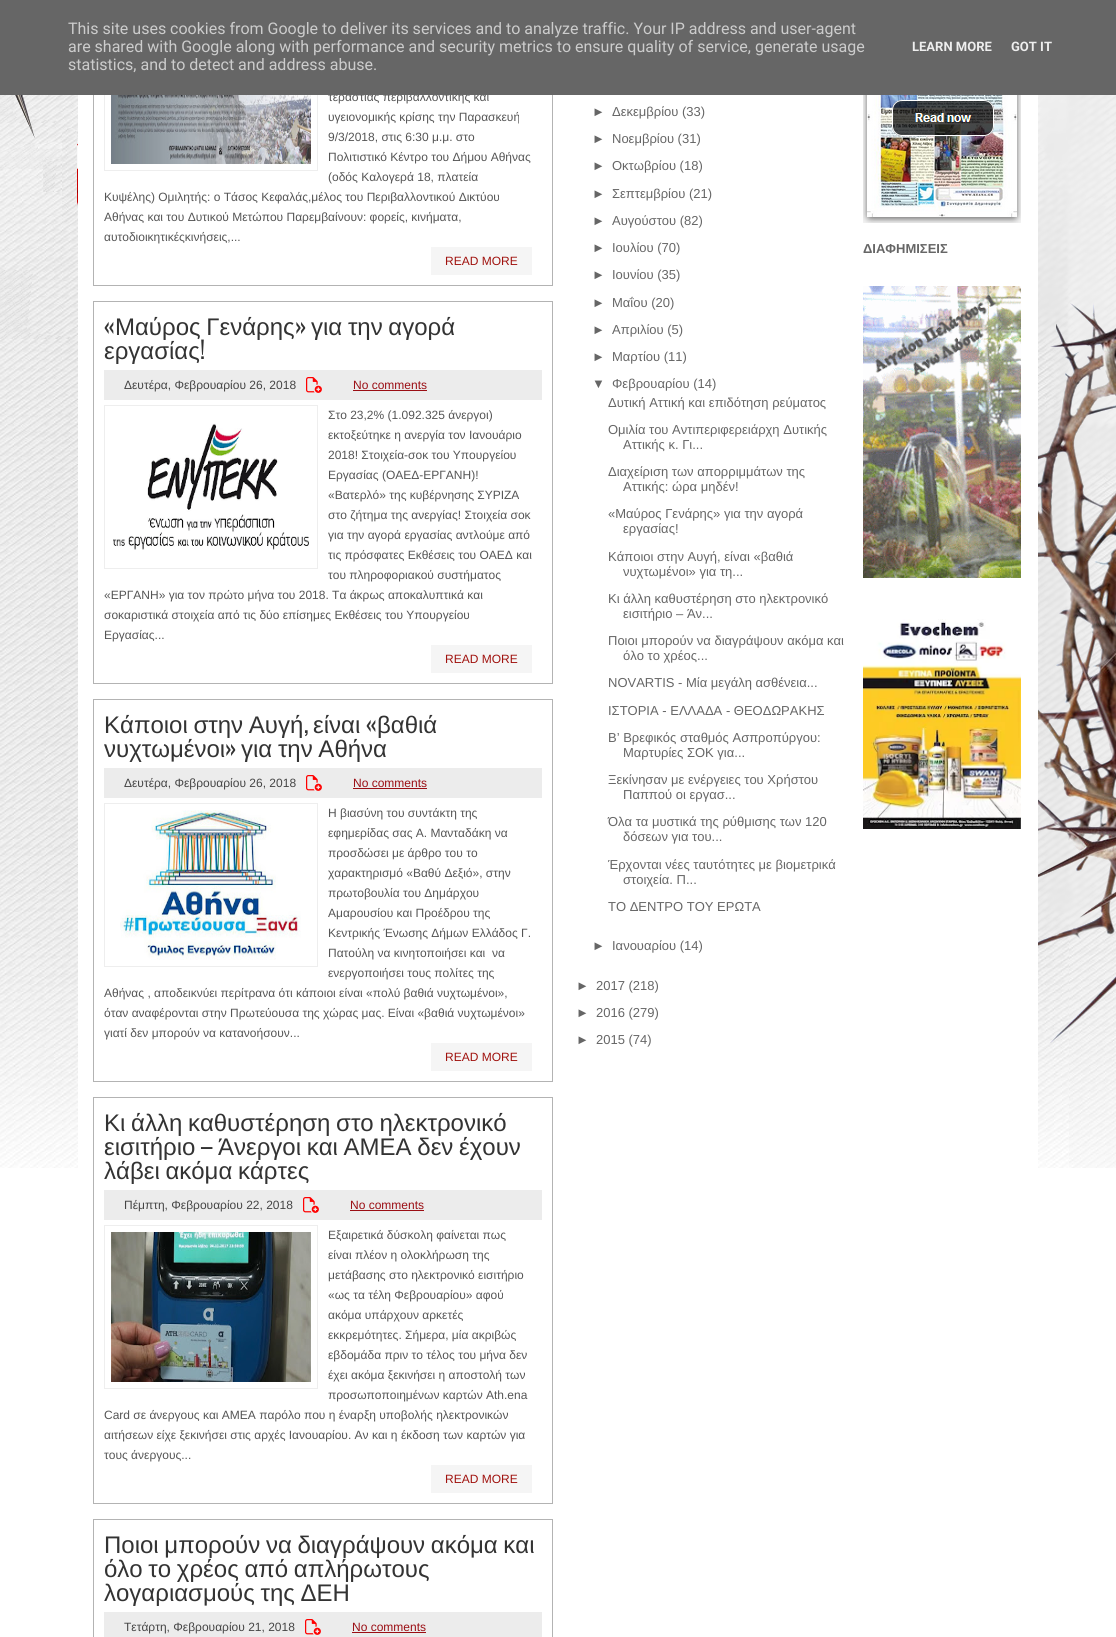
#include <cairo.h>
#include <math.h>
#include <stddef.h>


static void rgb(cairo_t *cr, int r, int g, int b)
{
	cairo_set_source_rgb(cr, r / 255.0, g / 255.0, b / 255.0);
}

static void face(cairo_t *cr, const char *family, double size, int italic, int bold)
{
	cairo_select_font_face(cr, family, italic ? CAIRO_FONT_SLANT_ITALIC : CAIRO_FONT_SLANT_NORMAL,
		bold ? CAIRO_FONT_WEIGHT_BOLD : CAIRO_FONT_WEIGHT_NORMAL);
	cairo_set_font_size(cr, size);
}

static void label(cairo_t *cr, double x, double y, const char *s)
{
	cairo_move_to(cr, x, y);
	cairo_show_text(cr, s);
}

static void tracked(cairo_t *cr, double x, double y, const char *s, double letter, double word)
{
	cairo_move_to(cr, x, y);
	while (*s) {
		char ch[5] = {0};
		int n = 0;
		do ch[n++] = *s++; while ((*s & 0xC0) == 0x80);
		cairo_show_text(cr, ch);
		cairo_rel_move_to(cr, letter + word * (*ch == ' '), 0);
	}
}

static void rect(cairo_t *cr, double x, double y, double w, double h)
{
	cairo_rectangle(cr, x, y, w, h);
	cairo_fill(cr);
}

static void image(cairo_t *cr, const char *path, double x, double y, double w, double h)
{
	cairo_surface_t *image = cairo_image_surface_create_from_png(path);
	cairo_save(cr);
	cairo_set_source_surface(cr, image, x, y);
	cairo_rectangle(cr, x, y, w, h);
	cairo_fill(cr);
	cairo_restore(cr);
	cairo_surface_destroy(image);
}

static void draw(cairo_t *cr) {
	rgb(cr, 255, 255, 255);
	cairo_paint(cr);
	image(cr, "image0.png", 0, 95, 1116, 1073);
	rgb(cr, 255, 255, 255);
	rect(cr, 78, 95, 960, 1073);
	cairo_rectangle(cr, 93.5, -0.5, 459, 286);
	rgb(cr, 179, 179, 179);
	cairo_set_line_width(cr, 1);
	cairo_stroke(cr);
	cairo_rectangle(cr, 104.5, 7.5, 213, 163);
	rgb(cr, 238, 238, 238);
	cairo_stroke(cr);
	face(cr, "Liberation Sans", 12, 0, 0);
	rgb(cr, 85, 85, 85);
	label(cr, 328, 101, "τεράστιας περιβαλλοντικής και");
	rgb(cr, 102, 102, 102);
	rect(cr, 0, 0, 1116, 95);
	face(cr, "Roboto", 16, 0, 0);
	rgb(cr, 204, 204, 204);
	label(cr, 68, 34, "This site uses cookies from Google to deliver its services and to analyze traffic. Your IP address and user-agent");
	label(cr, 68, 52, "are shared with Google along with performance and security metrics to ensure quality of service, generate usage");
	label(cr, 68, 70, "statistics, and to detect and address abuse.");
	face(cr, "Roboto", 13, 0, 1);
	rgb(cr, 238, 238, 238);
	label(cr, 912, 51, "LEARN MORE");
	label(cr, 1011, 51, "GOT IT");
	image(cr, "image1.png", 111, 95, 200, 69);
	face(cr, "Liberation Sans", 12, 0, 0);
	rgb(cr, 85, 85, 85);
	label(cr, 328, 121, "υγειονομικής κρίσης την Παρασκευή");
	label(cr, 328, 141, "9/3/2018, στις 6:30 μ.μ. στο");
	label(cr, 328, 161, "Πολιτιστικό Κέντρο του Δήμου Αθήνας");
	label(cr, 328, 181, "(οδός Καλογερά 18, πλατεία");
	label(cr, 104, 201, "Κυψέλης) Ομιλητής: ο Τάσος Κεφαλάς,μέλος του Περιβαλλοντικού Δικτύου");
	label(cr, 104, 221, "Αθήνας και του Δυτικού Μετώπου Παρεμβαίνουν: φορείς, κινήματα,");
	label(cr, 104, 241, "αυτοδιοικητικέςκινήσεις,...");
	rgb(cr, 245, 245, 245);
	rect(cr, 431, 247, 101, 28);
	rgb(cr, 160, 18, 14);
	label(cr, 445, 265, "READ MORE");
	cairo_rectangle(cr, 93.5, 301.5, 459, 382);
	rgb(cr, 179, 179, 179);
	cairo_stroke(cr);
	face(cr, "Oswald", 24, 0, 0);
	rgb(cr, 51, 51, 51);
	label(cr, 104, 335, "«");
	face(cr, "Liberation Sans", 24, 0, 0);
	tracked(cr, 115, 335, "Μαύρος Γενάρης", 0, -1);
	face(cr, "Oswald", 24, 0, 0);
	label(cr, 295, 335, "»");
	face(cr, "Liberation Sans", 24, 0, 0);
	tracked(cr, 311, 335, "για την αγορά", 0, -1);
	label(cr, 104, 359, "εργασίας");
	face(cr, "Oswald", 24, 0, 0);
	label(cr, 200, 359, "!");
	rgb(cr, 236, 236, 236);
	rect(cr, 104, 370, 438, 30);
	face(cr, "Liberation Sans", 12, 0, 0);
	rgb(cr, 69, 69, 69);
	label(cr, 124, 389, "Δευτέρα, Φεβρουαρίου 26, 2018");
	image(cr, "image2.png", 306, 377, 16, 16);
	rgb(cr, 155, 14, 20);
	label(cr, 353, 389, "No comments");
	rect(cr, 353, 390, 74, 1);
	cairo_rectangle(cr, 104.5, 405.5, 213, 163);
	rgb(cr, 238, 238, 238);
	cairo_stroke(cr);
	image(cr, "image3.png", 113, 423, 196, 127);
	rgb(cr, 85, 85, 85);
	label(cr, 328, 419, "Στο 23,2% (1.092.325 άνεργοι)");
	label(cr, 328, 439, "εκτοξεύτηκε η ανεργία τον Ιανουάριο");
	label(cr, 328, 459, "2018! Στοιχεία-σοκ του Υπουργείου");
	label(cr, 328, 479, "Εργασίας (ΟΑΕΔ-ΕΡΓΑΝΗ)!");
	label(cr, 328, 499, "«Βατερλό» της κυβέρνησης ΣΥΡΙΖΑ");
	label(cr, 328, 519, "στο ζήτημα της ανεργίας! Στοιχεία σοκ");
	label(cr, 328, 539, "για την αγορά εργασίας αντλούμε από");
	label(cr, 328, 559, "τις πρόσφατες Εκθέσεις του ΟΑΕΔ και");
	label(cr, 328, 579, "του πληροφοριακού συστήματος");
	label(cr, 104, 599, "«ΕΡΓΑΝΗ» για τον πρώτο μήνα του 2018. Τα άκρως αποκαλυπτικά και");
	label(cr, 104, 619, "σοκαριστικά στοιχεία από τις δύο επίσημες Εκθέσεις του Υπουργείου");
	label(cr, 104, 639, "Εργασίας...");
	rgb(cr, 245, 245, 245);
	rect(cr, 431, 645, 101, 28);
	rgb(cr, 160, 18, 14);
	label(cr, 445, 663, "READ MORE");
	cairo_rectangle(cr, 93.5, 699.5, 459, 382);
	rgb(cr, 179, 179, 179);
	cairo_stroke(cr);
	face(cr, "Liberation Sans", 24, 0, 0);
	rgb(cr, 51, 51, 51);
	tracked(cr, 104, 733, "Κάποιοι στην Αυγή", 0, -1);
	label(cr, 313, 733, "είναι");
	face(cr, "Oswald", 24, 0, 0);
	label(cr, 366, 733, "«");
	face(cr, "Liberation Sans", 24, 0, 0);
	label(cr, 377, 733, "βαθιά");
	face(cr, "Oswald", 24, 0, 0);
	label(cr, 304, 733, ",");
	face(cr, "Liberation Sans", 24, 0, 0);
	label(cr, 104, 757, "νυχτωμένοι");
	face(cr, "Oswald", 24, 0, 0);
	label(cr, 225, 757, "»");
	face(cr, "Liberation Sans", 24, 0, 0);
	tracked(cr, 241, 757, "για την Αθήνα", 0, -1);
	rgb(cr, 236, 236, 236);
	rect(cr, 104, 768, 438, 30);
	face(cr, "Liberation Sans", 12, 0, 0);
	rgb(cr, 69, 69, 69);
	label(cr, 124, 787, "Δευτέρα, Φεβρουαρίου 26, 2018");
	image(cr, "image2.png", 306, 775, 16, 16);
	rgb(cr, 155, 14, 20);
	label(cr, 353, 787, "No comments");
	rect(cr, 353, 788, 74, 1);
	cairo_rectangle(cr, 104.5, 803.5, 213, 163);
	rgb(cr, 238, 238, 238);
	cairo_stroke(cr);
	image(cr, "image4.png", 120, 810, 181, 150);
	rgb(cr, 85, 85, 85);
	label(cr, 328, 817, "Η βιασύνη του συντάκτη της");
	label(cr, 328, 837, "εφημερίδας σας Α. Μανταδάκη να");
	label(cr, 328, 857, "προσδώσει με άρθρο του το");
	label(cr, 328, 877, "χαρακτηρισμό «Βαθύ Δεξιό», στην");
	label(cr, 328, 897, "πρωτοβουλία του Δημάρχου");
	label(cr, 328, 917, "Αμαρουσίου και Προέδρου της");
	label(cr, 328, 937, "Κεντρικής Ένωσης Δήμων Ελλάδος Γ.");
	label(cr, 328, 957, "Πατούλη να κινητοποιήσει και  να");
	label(cr, 328, 977, "ενεργοποιήσει τους πολίτες της");
	label(cr, 104, 997, "Αθήνας , αποδεικνύει περίτρανα ότι κάποιοι είναι «πολύ βαθιά νυχτωμένοι»,");
	label(cr, 104, 1017, "όταν αναφέρονται στην Πρωτεύουσα της χώρας μας. Είναι «βαθιά νυχτωμένοι»");
	label(cr, 104, 1037, "γιατί δεν μπορούν να κατανοήσουν...");
	rgb(cr, 245, 245, 245);
	rect(cr, 431, 1043, 101, 28);
	rgb(cr, 160, 18, 14);
	label(cr, 445, 1061, "READ MORE");
	cairo_rectangle(cr, 93.5, 1097.5, 459, 406);
	rgb(cr, 179, 179, 179);
	cairo_stroke(cr);
	face(cr, "Liberation Sans", 24, 0, 0);
	rgb(cr, 51, 51, 51);
	tracked(cr, 104, 1131, "Κι άλλη καθυστέρηση στο ηλεκτρονικό", 0, -1);
	label(cr, 104, 1155, "εισιτήριο");
	face(cr, "Oswald", 24, 0, 0);
	label(cr, 200, 1155, "–");
	face(cr, "Liberation Sans", 24, 0, 0);
	tracked(cr, 218, 1155, "Άνεργοι και ΑΜΕΑ δεν έχουν", 0, -1);
	tracked(cr, 104, 1179, "λάβει ακόμα κάρτες", 0, -1);
	rgb(cr, 236, 236, 236);
	rect(cr, 104, 1190, 438, 30);
	face(cr, "Liberation Sans", 12, 0, 0);
	rgb(cr, 69, 69, 69);
	label(cr, 124, 1209, "Πέμπτη, Φεβρουαρίου 22, 2018");
	image(cr, "image2.png", 303, 1197, 16, 16);
	rgb(cr, 155, 14, 20);
	label(cr, 350, 1209, "No comments");
	rect(cr, 350, 1210, 74, 1);
	cairo_rectangle(cr, 104.5, 1225.5, 213, 163);
	rgb(cr, 238, 238, 238);
	cairo_stroke(cr);
	image(cr, "image5.png", 111, 1232, 200, 150);
	rgb(cr, 85, 85, 85);
	label(cr, 328, 1239, "Εξαιρετικά δύσκολη φαίνεται πως");
	label(cr, 328, 1259, "είναι πλέον η ολοκλήρωση της");
	label(cr, 328, 1279, "μετάβασης στο ηλεκτρονικό εισιτήριο");
	label(cr, 328, 1299, "«ως τα τέλη Φεβρουαρίου» αφού");
	label(cr, 328, 1319, "ακόμα υπάρχουν αρκετές");
	label(cr, 328, 1339, "εκκρεμότητες. Σήμερα, μία ακριβώς");
	label(cr, 328, 1359, "εβδομάδα πριν το τέλος του μήνα δεν");
	label(cr, 328, 1379, "έχει ακόμα ξεκινήσει η αποστολή των");
	label(cr, 328, 1399, "προσωποποιημένων καρτών Ath.ena");
	label(cr, 104, 1419, "Card σε άνεργους και ΑΜΕΑ παρόλο που η έναρξη υποβολής ηλεκτρονικών");
	label(cr, 104, 1439, "αιτήσεων είχε ξεκινήσει στις αρχές Ιανουαρίου. Αν και η έκδοση των καρτών για");
	label(cr, 104, 1459, "τους άνεργους...");
	rgb(cr, 245, 245, 245);
	rect(cr, 431, 1465, 101, 28);
	rgb(cr, 160, 18, 14);
	label(cr, 445, 1483, "READ MORE");
	cairo_rectangle(cr, 93.5, 1519.5, 459, 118);
	rgb(cr, 179, 179, 179);
	cairo_stroke(cr);
	face(cr, "Liberation Sans", 24, 0, 0);
	rgb(cr, 51, 51, 51);
	tracked(cr, 104, 1553, "Ποιοι μπορούν να διαγράψουν ακόμα και", 0, -1);
	tracked(cr, 104, 1577, "όλο το χρέος από απλήρωτους", 0, -1);
	tracked(cr, 104, 1601, "λογαριασμούς της ΔΕΗ", 0, -1);
	rgb(cr, 236, 236, 236);
	rect(cr, 104, 1612, 438, 25);
	face(cr, "Liberation Sans", 12, 0, 0);
	rgb(cr, 69, 69, 69);
	label(cr, 124, 1631, "Τετάρτη, Φεβρουαρίου 21, 2018");
	image(cr, "image2.png", 305, 1619, 16, 16);
	rgb(cr, 155, 14, 20);
	label(cr, 352, 1631, "No comments");
	rect(cr, 352, 1632, 74, 1);
	face(cr, "Liberation Sans", 13, 0, 0);
	rgb(cr, 102, 102, 102);
	label(cr, 592, 116, "►");
	label(cr, 612, 116, "Δεκεμβρίου (33)");
	label(cr, 592, 143, "►");
	label(cr, 612, 143, "Νοεμβρίου (31)");
	label(cr, 592, 170, "►");
	label(cr, 612, 170, "Οκτωβρίου (18)");
	label(cr, 592, 198, "►");
	label(cr, 612, 198, "Σεπτεμβρίου (21)");
	label(cr, 592, 225, "►");
	label(cr, 612, 225, "Αυγούστου (82)");
	label(cr, 592, 252, "►");
	label(cr, 612, 252, "Ιουλίου (70)");
	label(cr, 592, 279, "►");
	label(cr, 612, 279, "Ιουνίου (35)");
	label(cr, 592, 307, "►");
	label(cr, 612, 307, "Μαΐου (20)");
	label(cr, 592, 334, "►");
	label(cr, 612, 334, "Απριλίου (5)");
	label(cr, 592, 361, "►");
	label(cr, 612, 361, "Μαρτίου (11)");
	label(cr, 592, 388, "▼");
	label(cr, 612, 388, "Φεβρουαρίου (14)");
	label(cr, 608, 407, "Δυτική Αττική και επιδότηση ρεύματος");
	label(cr, 608, 434, "Ομιλία του Αντιπεριφερειάρχη Δυτικής");
	label(cr, 623, 449, "Αττικής κ. Γι...");
	label(cr, 608, 476, "Διαχείριση των απορριμμάτων της");
	label(cr, 623, 491, "Αττικής: ώρα μηδέν!");
	label(cr, 608, 518, "«Μαύρος Γενάρης» για την αγορά");
	label(cr, 623, 533, "εργασίας!");
	label(cr, 608, 561, "Κάποιοι στην Αυγή, είναι «βαθιά");
	label(cr, 623, 576, "νυχτωμένοι» για τη...");
	label(cr, 608, 603, "Κι άλλη καθυστέρηση στο ηλεκτρονικό");
	label(cr, 623, 618, "εισιτήριο – Άν...");
	label(cr, 608, 645, "Ποιοι μπορούν να διαγράψουν ακόμα και");
	label(cr, 623, 660, "όλο το χρέος...");
	label(cr, 608, 687, "NOVARTIS - Μία μεγάλη ασθένεια...");
	label(cr, 608, 715, "ΙΣΤΟΡΙΑ - ΕΛΛΑΔΑ - ΘΕΟΔΩΡΑΚΗΣ");
	label(cr, 608, 742, "Β’ Βρεφικός σταθμός Ασπροπύργου:");
	label(cr, 623, 757, "Μαρτυρίες ΣΟΚ για...");
	label(cr, 608, 784, "Ξεκίνησαν με ενέργειες του Χρήστου");
	label(cr, 623, 799, "Παππού οι εργασ...");
	label(cr, 608, 826, "Όλα τα μυστικά της ρύθμισης των 120");
	label(cr, 623, 841, "δόσεων για του...");
	label(cr, 608, 869, "Έρχονται νέες ταυτότητες με βιομετρικά");
	label(cr, 623, 884, "στοιχεία. Π...");
	label(cr, 608, 911, "ΤΟ ΔΕΝΤΡΟ ΤΟΥ ΕΡΩΤΑ");
	label(cr, 592, 950, "►");
	label(cr, 612, 950, "Ιανουαρίου (14)");
	label(cr, 576, 990, "►");
	label(cr, 596, 990, "2017 (218)");
	label(cr, 576, 1017, "►");
	label(cr, 596, 1017, "2016 (279)");
	label(cr, 576, 1044, "►");
	label(cr, 596, 1044, "2015 (74)");
	image(cr, "image6.png", 863, 95, 158, 128);
	face(cr, "Liberation Sans", 13, 0, 1);
	label(cr, 863, 253, "ΔΙΑΦΗΜΙΣΕΙΣ");
	image(cr, "image7.png", 863, 286, 158, 292);
	image(cr, "image8.png", 863, 619, 158, 210);
}

int main(void) {
	cairo_surface_t *surface = cairo_image_surface_create(CAIRO_FORMAT_RGB24, 1116, 1637);
	cairo_t *cr = cairo_create(surface);
	cairo_font_options_t *options = cairo_font_options_create();
	cairo_font_options_set_hint_metrics(options, CAIRO_HINT_METRICS_OFF);
	cairo_font_options_set_hint_style(options, CAIRO_HINT_STYLE_NONE);
	cairo_set_font_options(cr, options);
	cairo_set_miter_limit(cr, 4);
	draw(cr);
	cairo_surface_write_to_png(surface, "render.png");
	cairo_font_options_destroy(options);
	cairo_destroy(cr);
	cairo_surface_destroy(surface);
	return 0;
}
